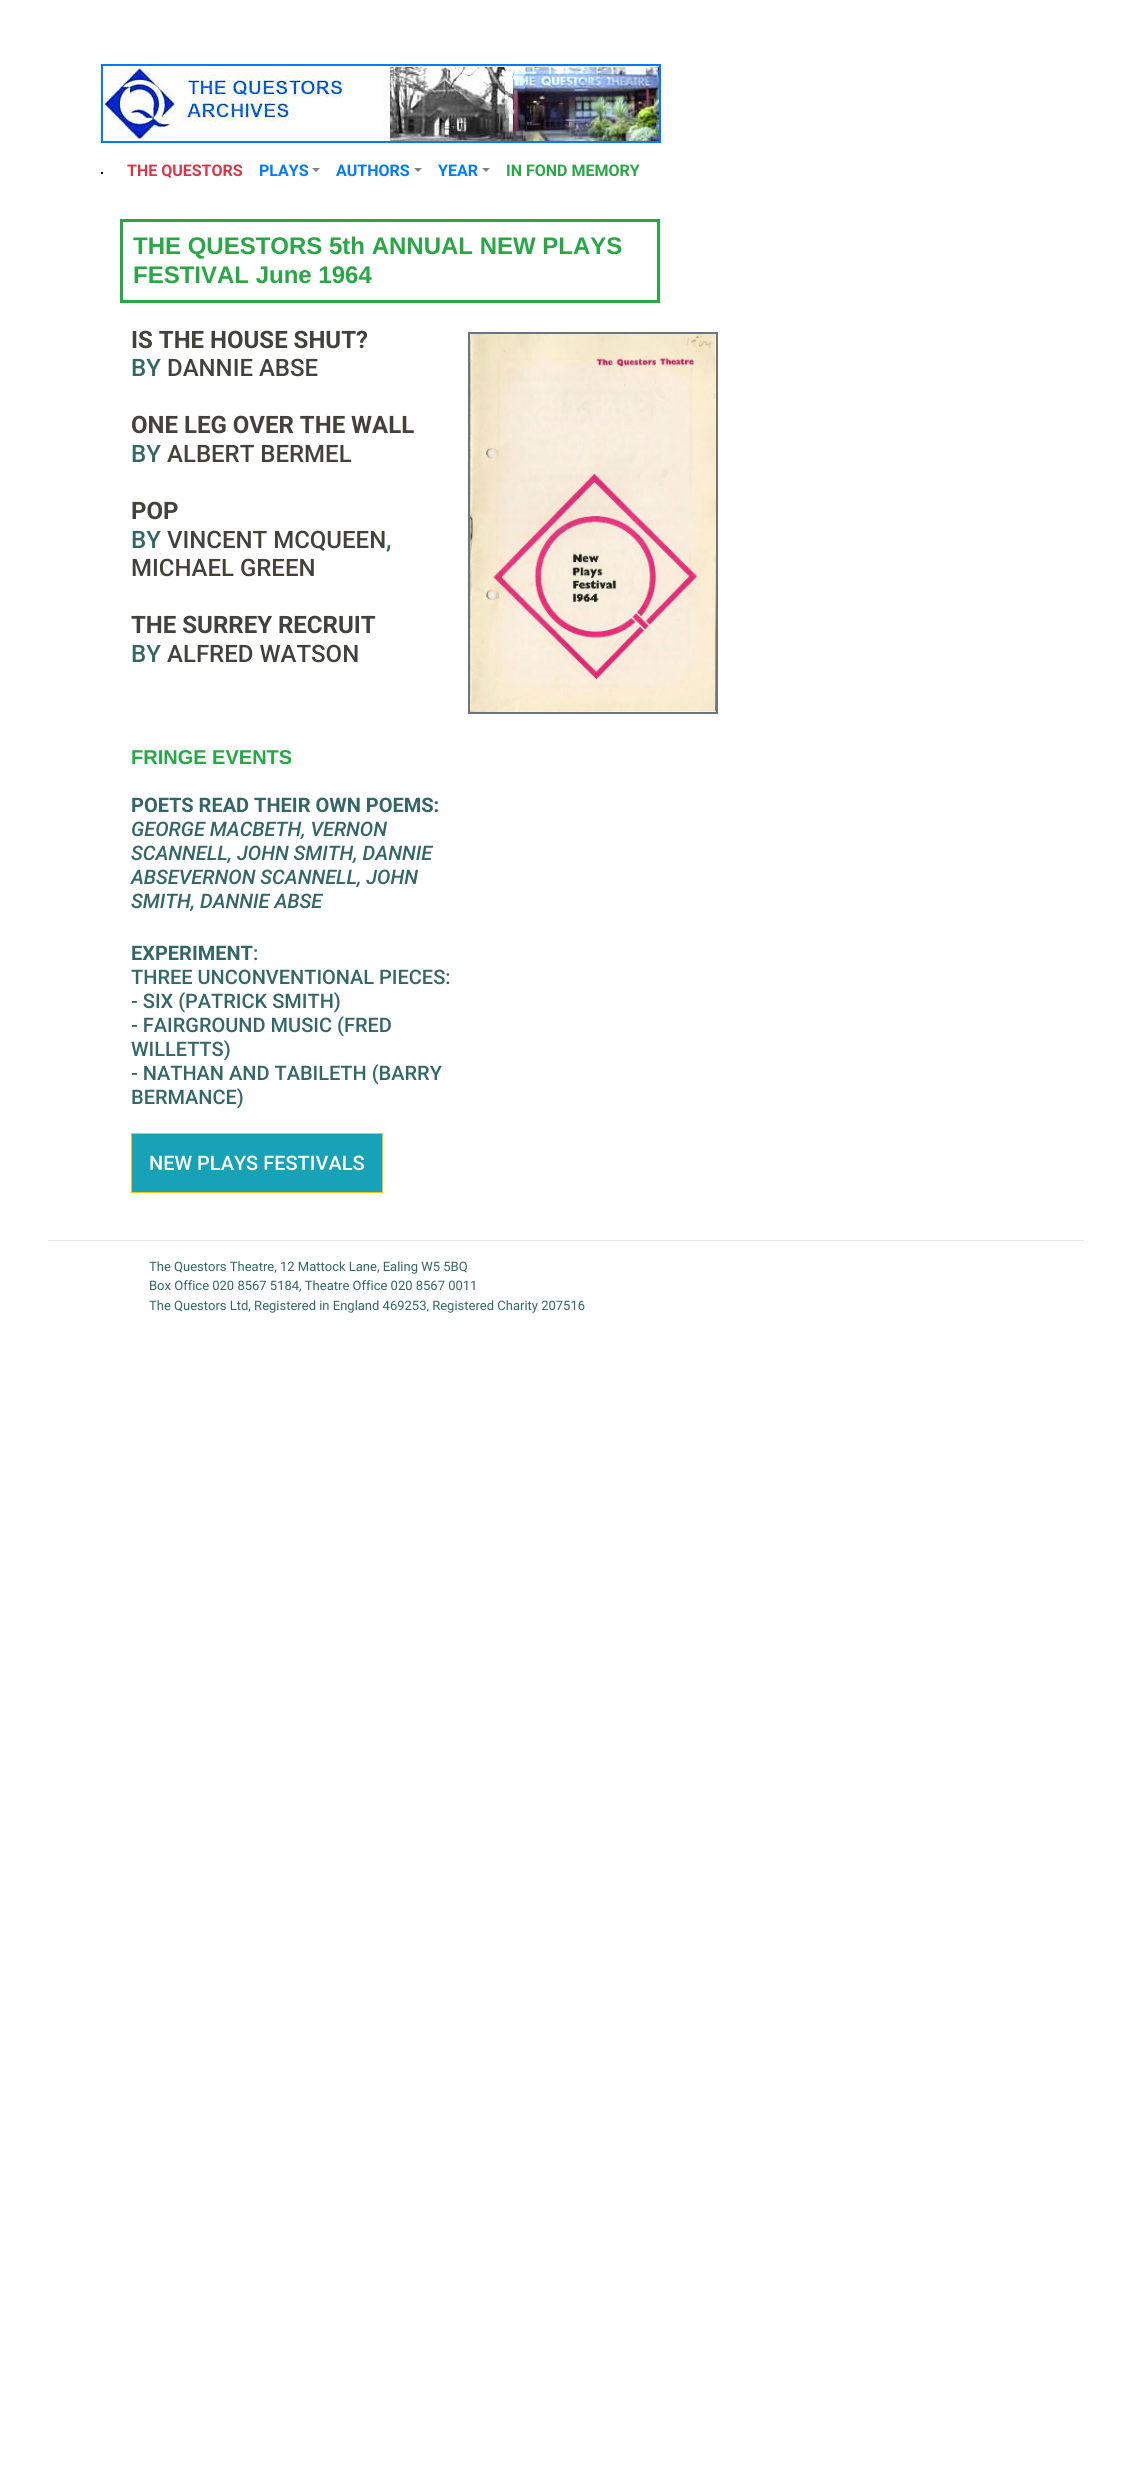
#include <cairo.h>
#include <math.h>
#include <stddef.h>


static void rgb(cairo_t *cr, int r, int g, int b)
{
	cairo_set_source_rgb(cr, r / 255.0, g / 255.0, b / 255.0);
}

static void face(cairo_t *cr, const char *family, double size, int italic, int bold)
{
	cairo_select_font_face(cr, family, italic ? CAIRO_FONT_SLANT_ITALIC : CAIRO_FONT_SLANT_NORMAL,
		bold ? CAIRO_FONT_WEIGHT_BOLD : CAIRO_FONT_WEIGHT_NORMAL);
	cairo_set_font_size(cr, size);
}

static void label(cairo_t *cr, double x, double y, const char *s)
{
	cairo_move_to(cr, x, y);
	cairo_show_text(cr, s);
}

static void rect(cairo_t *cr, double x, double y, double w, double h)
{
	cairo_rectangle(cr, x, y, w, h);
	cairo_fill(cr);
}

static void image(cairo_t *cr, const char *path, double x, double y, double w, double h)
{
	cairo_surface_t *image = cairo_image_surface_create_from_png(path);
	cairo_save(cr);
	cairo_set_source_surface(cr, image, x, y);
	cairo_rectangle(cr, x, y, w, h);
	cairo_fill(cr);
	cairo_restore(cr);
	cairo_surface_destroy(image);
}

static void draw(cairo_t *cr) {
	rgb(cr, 255, 255, 255);
	cairo_paint(cr);
	cairo_rectangle(cr, 102, 65, 558, 77);
	rgb(cr, 0, 123, 255);
	cairo_stroke(cr);
	image(cr, "image0.png", 103, 66, 556, 75);
	rgb(cr, 0, 0, 0);
	rect(cr, 101, 172, 2, 2);
	face(cr, "Roboto", 16, 0, 1);
	rgb(cr, 220, 53, 69);
	label(cr, 127, 176, "THE QUESTORS");
	rgb(cr, 0, 123, 255);
	label(cr, 259, 176, "PLAYS");
	rgb(cr, 128, 128, 128);
	cairo_new_path(cr);
	cairo_move_to(cr, 312, 168);
	cairo_line_to(cr, 320, 168);
	cairo_line_to(cr, 316, 172);
	cairo_close_path(cr);
	cairo_fill(cr);
	rgb(cr, 0, 123, 255);
	label(cr, 336, 176, "AUTHORS");
	rgb(cr, 128, 128, 128);
	cairo_new_path(cr);
	cairo_move_to(cr, 414, 168);
	cairo_line_to(cr, 422, 168);
	cairo_line_to(cr, 418, 172);
	cairo_close_path(cr);
	cairo_fill(cr);
	rgb(cr, 0, 123, 255);
	label(cr, 438, 176, "YEAR");
	rgb(cr, 128, 128, 128);
	cairo_new_path(cr);
	cairo_move_to(cr, 482, 168);
	cairo_line_to(cr, 490, 168);
	cairo_line_to(cr, 486, 172);
	cairo_close_path(cr);
	cairo_fill(cr);
	rgb(cr, 40, 167, 69);
	label(cr, 506, 176, "IN FOND MEMORY");
	cairo_rectangle(cr, 121.5, 220.5, 537, 81);
	cairo_set_line_width(cr, 3);
	cairo_stroke(cr);
	face(cr, "Liberation Sans", 24, 0, 1);
	label(cr, 133, 254, "THE QUESTORS 5th ANNUAL NEW PLAYS");
	label(cr, 133, 283, "FESTIVAL June 1964");
	face(cr, "Roboto", 24, 0, 1);
	rgb(cr, 66, 65, 60);
	label(cr, 131, 348, "IS THE HOUSE SHUT?");
	face(cr, "Roboto Medium", 24, 0, 0);
	rgb(cr, 51, 102, 102);
	label(cr, 131, 376, "BY");
	rgb(cr, 66, 65, 60);
	label(cr, 167, 376, "DANNIE ABSE");
	face(cr, "Roboto", 24, 0, 1);
	label(cr, 131, 433, "ONE LEG OVER THE WALL");
	face(cr, "Roboto Medium", 24, 0, 0);
	rgb(cr, 51, 102, 102);
	label(cr, 131, 462, "BY");
	rgb(cr, 66, 65, 60);
	label(cr, 167, 462, "ALBERT BERMEL");
	face(cr, "Roboto", 24, 0, 1);
	label(cr, 131, 519, "POP");
	face(cr, "Roboto Medium", 24, 0, 0);
	rgb(cr, 51, 102, 102);
	label(cr, 131, 548, "BY");
	rgb(cr, 66, 65, 60);
	label(cr, 167, 548, "VINCENT MCQUEEN");
	rgb(cr, 51, 102, 102);
	label(cr, 386, 548, ",");
	rgb(cr, 66, 65, 60);
	label(cr, 131, 576, "MICHAEL GREEN");
	face(cr, "Roboto", 24, 0, 1);
	label(cr, 131, 633, "THE SURREY RECRUIT");
	face(cr, "Roboto Medium", 24, 0, 0);
	rgb(cr, 51, 102, 102);
	label(cr, 131, 662, "BY");
	rgb(cr, 66, 65, 60);
	label(cr, 167, 662, "ALFRED WATSON");
	rgb(cr, 248, 249, 250);
	rect(cr, 131, 746, 161, 22);
	face(cr, "Liberation Sans", 20, 0, 1);
	rgb(cr, 40, 167, 69);
	label(cr, 131, 764, "FRINGE EVENTS");
	face(cr, "Roboto", 20, 0, 1);
	rgb(cr, 51, 102, 102);
	label(cr, 131, 812, "POETS READ THEIR OWN POEMS:");
	face(cr, "Roboto Medium", 20, 1, 0);
	label(cr, 131, 836, "GEORGE MACBETH, VERNON");
	label(cr, 131, 860, "SCANNELL, JOHN SMITH, DANNIE");
	label(cr, 131, 884, "ABSEVERNON SCANNELL, JOHN");
	label(cr, 131, 908, "SMITH, DANNIE ABSE");
	face(cr, "Roboto", 20, 0, 1);
	label(cr, 131, 960, "EXPERIMENT");
	face(cr, "Roboto Medium", 20, 0, 0);
	label(cr, 253, 960, ":");
	label(cr, 131, 984, "THREE UNCONVENTIONAL PIECES:");
	label(cr, 131, 1008, "- SIX (PATRICK SMITH)");
	label(cr, 131, 1032, "- FAIRGROUND MUSIC (FRED");
	label(cr, 131, 1056, "WILLETTS)");
	label(cr, 131, 1080, "- NATHAN AND TABILETH (BARRY");
	label(cr, 131, 1104, "BERMANCE)");
	rgb(cr, 23, 162, 184);
	cairo_rectangle(cr, 131.5, 1133.5, 251, 59);
	cairo_fill_preserve(cr);
	rgb(cr, 255, 193, 7);
	cairo_set_line_width(cr, 1);
	cairo_stroke(cr);
	rgb(cr, 255, 255, 255);
	label(cr, 149, 1170, "NEW PLAYS FESTIVALS");
	cairo_rectangle(cr, 469, 333, 248, 380);
	rgb(cr, 108, 117, 125);
	cairo_set_line_width(cr, 2);
	cairo_stroke(cr);
	image(cr, "image1.png", 470, 334, 246, 378);
	rgb(cr, 230, 230, 230);
	rect(cr, 48, 1240, 1036, 1);
	face(cr, "Roboto", 13, 0, 0);
	rgb(cr, 51, 102, 102);
	label(cr, 149, 1271, "The Questors Theatre, 12 Mattock Lane, Ealing W5 5BQ");
	label(cr, 149, 1290, "Box Office 020 8567 5184, Theatre Office 020 8567 0011");
	label(cr, 149, 1310, "The Questors Ltd, Registered in England 469253, Registered Charity 207516");
}

int main(void) {
	cairo_surface_t *surface = cairo_image_surface_create(CAIRO_FORMAT_RGB24, 1132, 2484);
	cairo_t *cr = cairo_create(surface);
	cairo_font_options_t *options = cairo_font_options_create();
	cairo_font_options_set_hint_metrics(options, CAIRO_HINT_METRICS_OFF);
	cairo_font_options_set_hint_style(options, CAIRO_HINT_STYLE_NONE);
	cairo_set_font_options(cr, options);
	cairo_set_miter_limit(cr, 4);
	draw(cr);
	cairo_surface_write_to_png(surface, "render.png");
	cairo_font_options_destroy(options);
	cairo_destroy(cr);
	cairo_surface_destroy(surface);
	return 0;
}
